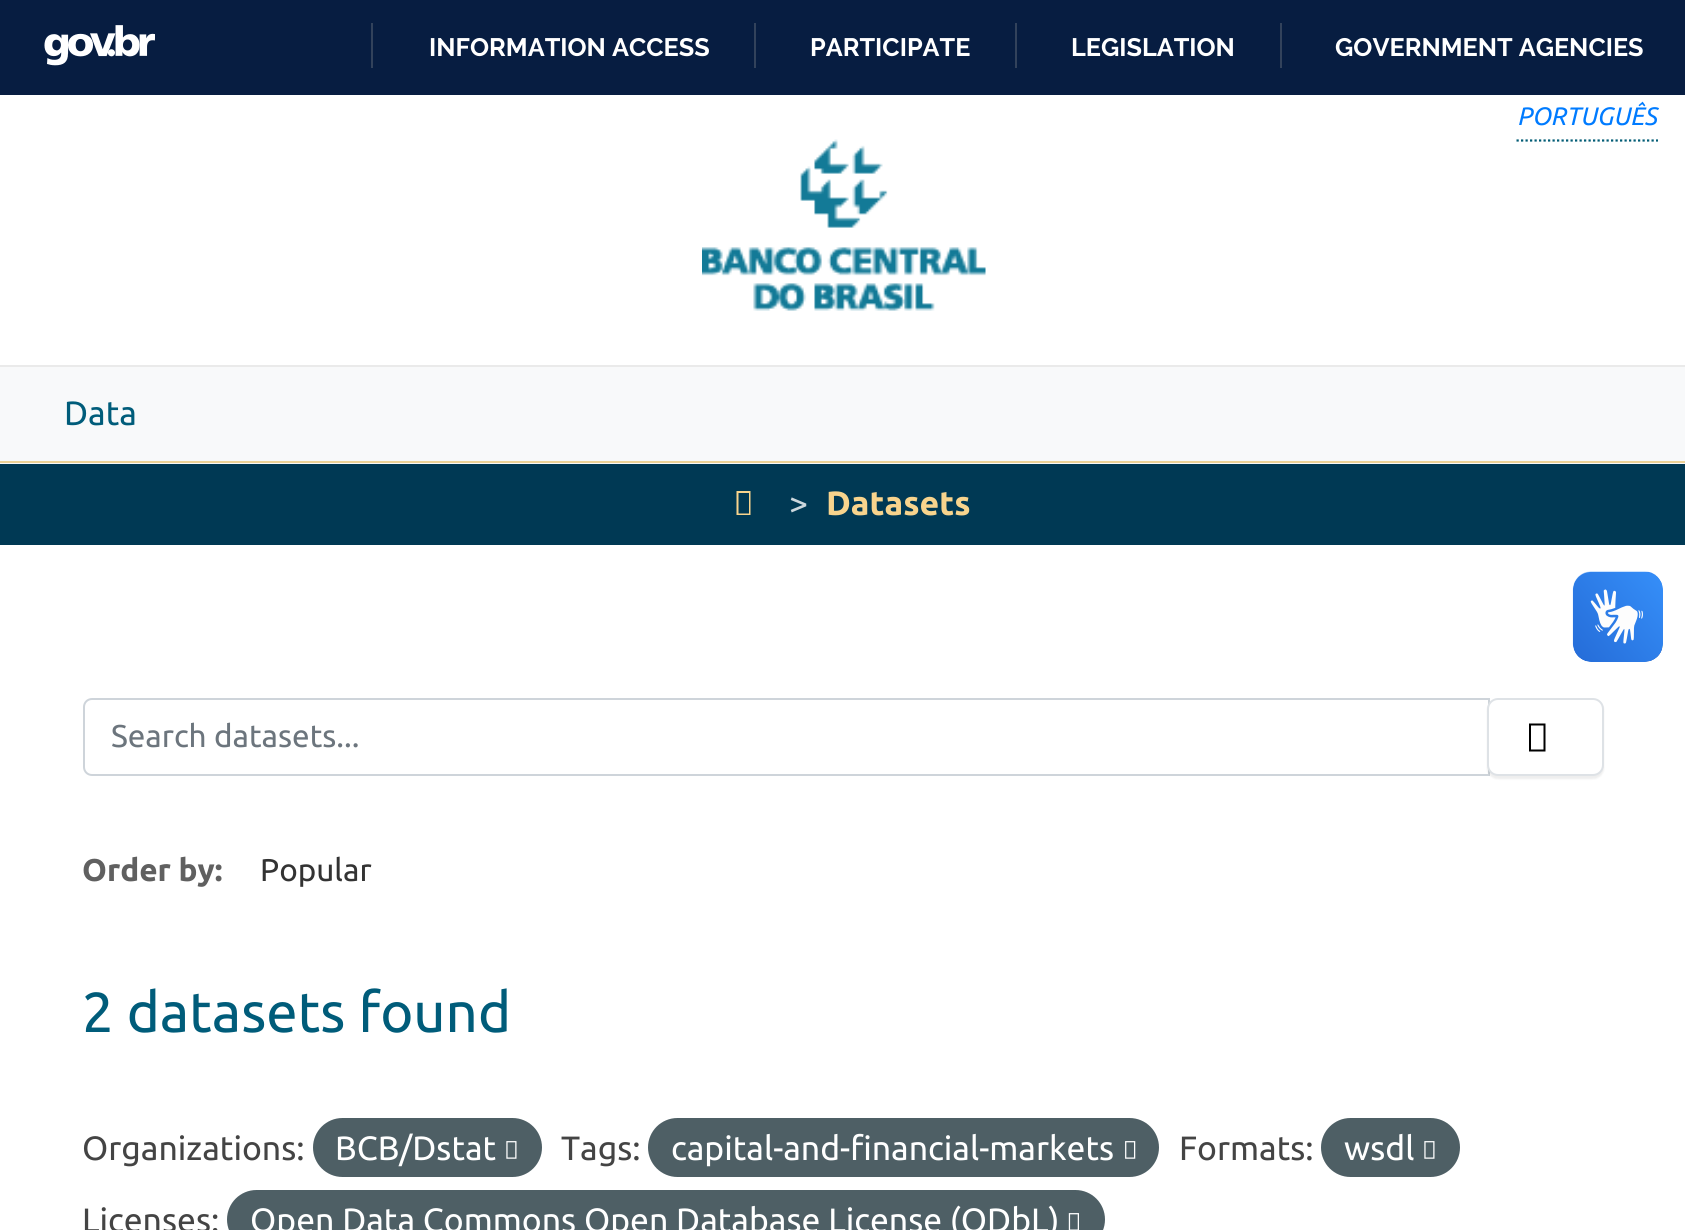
#include <cairo.h>
#include <math.h>
#include <stddef.h>


static void rgb(cairo_t *cr, int r, int g, int b)
{
	cairo_set_source_rgb(cr, r / 255.0, g / 255.0, b / 255.0);
}

static void face(cairo_t *cr, const char *family, double size, int italic, int bold)
{
	cairo_select_font_face(cr, family, italic ? CAIRO_FONT_SLANT_ITALIC : CAIRO_FONT_SLANT_NORMAL,
		bold ? CAIRO_FONT_WEIGHT_BOLD : CAIRO_FONT_WEIGHT_NORMAL);
	cairo_set_font_size(cr, size);
}

static void label(cairo_t *cr, double x, double y, const char *s)
{
	cairo_move_to(cr, x, y);
	cairo_show_text(cr, s);
}

static void rect(cairo_t *cr, double x, double y, double w, double h)
{
	cairo_rectangle(cr, x, y, w, h);
	cairo_fill(cr);
}

static void rrect(cairo_t *cr, double x, double y, double w, double h, double r)
{
	cairo_new_sub_path(cr);
	cairo_arc(cr, x + w - r, y + h - r, r, 0, M_PI / 2);
	cairo_arc(cr, x + r, y + h - r, r, M_PI / 2, M_PI);
	cairo_arc(cr, x + r, y + r, r, M_PI, 1.5 * M_PI);
	cairo_arc(cr, x + w - r, y + r, r, 1.5 * M_PI, 2 * M_PI);
	cairo_close_path(cr);
}

static void soft_shadow(cairo_t *cr, double x, double y, double w, double h, double r, double blur, double alpha)
{
	cairo_push_group_with_content(cr, CAIRO_CONTENT_ALPHA);
	cairo_set_operator(cr, CAIRO_OPERATOR_SOURCE);
	for (int i = 15; i >= -15 && fmin(w, h) + blur * i / 3 > 0; i -= 2) {
		double e = blur * i / 6;
		cairo_set_source_rgba(cr, 0, 0, 0, alpha * erfc((i - 1) / 8.5) / 2);
		rrect(cr, x - e, y - e, w + 2 * e, h + 2 * e, fmax(0, fmin(r + e + blur * .6, fmin(w, h) / 2 + e)));
		cairo_fill(cr);
	}
	cairo_pattern_t *soft = cairo_pop_group(cr);
	cairo_mask(cr, soft);
	cairo_pattern_destroy(soft);
}

static void image(cairo_t *cr, const char *path, double x, double y, double w, double h)
{
	cairo_surface_t *image = cairo_image_surface_create_from_png(path);
	cairo_save(cr);
	cairo_set_source_surface(cr, image, x, y);
	cairo_rectangle(cr, x, y, w, h);
	cairo_fill(cr);
	cairo_restore(cr);
	cairo_surface_destroy(image);
}

static void draw(cairo_t *cr) {
	rgb(cr, 255, 255, 255);
	cairo_paint(cr);
	rgb(cr, 7, 29, 65);
	rect(cr, 0, 0, 1685, 95);
	image(cr, "image0.png", 44, 25, 111, 41);
	rgb(cr, 50, 66, 91);
	rect(cr, 371, 23, 2, 45);
	face(cr, "Raleway", 25.25, 0, 1);
	rgb(cr, 255, 255, 255);
	label(cr, 429, 56, "INFORMATION ACCESS");
	rgb(cr, 50, 66, 91);
	rect(cr, 754, 23, 2, 45);
	rgb(cr, 255, 255, 255);
	label(cr, 810, 56, "PARTICIPATE");
	rgb(cr, 50, 66, 91);
	rect(cr, 1015, 23, 2, 45);
	rgb(cr, 255, 255, 255);
	label(cr, 1071, 56, "LEGISLATION");
	rgb(cr, 50, 66, 91);
	rect(cr, 1280, 23, 2, 45);
	rgb(cr, 255, 255, 255);
	label(cr, 1335, 56, "GOVERNMENT AGENCIES");
	cairo_new_path(cr);
	cairo_move_to(cr, 1516.5, 140.5);
	cairo_line_to(cr, 1658, 140.5);
	rgb(cr, 2, 92, 117);
	cairo_set_line_width(cr, 2.2);
	cairo_set_dash(cr, (double[]){2.25, 2.25}, 2, 0);
	cairo_stroke(cr);
	face(cr, "Ubuntu", 25.25, 1, 0);
	rgb(cr, 0, 123, 255);
	label(cr, 1517, 125, "PORTUGUÊS");
	image(cr, "image1.png", 702, 139, 284, 172);
	rgb(cr, 248, 249, 250);
	rect(cr, 0, 367, 1685, 97);
	rgb(cr, 234, 234, 234);
	rect(cr, 0, 365, 1685, 2);
	rgb(cr, 237, 210, 151);
	rect(cr, 0, 461, 1685, 2);
	face(cr, "Ubuntu", 33.75, 0, 0);
	rgb(cr, 0, 92, 122);
	label(cr, 64, 425, "Data");
	rgb(cr, 0, 57, 84);
	rect(cr, 0, 464, 1685, 81);
	rgb(cr, 248, 212, 141);
	cairo_new_path(cr);
	cairo_move_to(cr, 736.5, 515);
	cairo_line_to(cr, 736.5, 491);
	cairo_line_to(cr, 750.5, 491);
	cairo_line_to(cr, 750.5, 515);
	cairo_close_path(cr);
	cairo_move_to(cr, 738.5, 513.5);
	cairo_line_to(cr, 749, 513.5);
	cairo_line_to(cr, 749, 493);
	cairo_line_to(cr, 738.5, 493);
	cairo_close_path(cr);
	cairo_fill(cr);
	rgb(cr, 204, 215, 221);
	label(cr, 789, 515, ">");
	face(cr, "Ubuntu", 33.75, 0, 1);
	rgb(cr, 248, 212, 141);
	label(cr, 826, 515, "Datasets");
	cairo_new_path(cr);
	cairo_move_to(cr, 92, 699);
	cairo_line_to(cr, 1489, 699);
	cairo_line_to(cr, 1489, 775);
	cairo_line_to(cr, 92, 775);
	cairo_curve_to(cr, 87.5, 775, 84, 771.5, 84, 767);
	cairo_line_to(cr, 84, 707);
	cairo_curve_to(cr, 84, 702.5, 87.5, 699, 92, 699);
	cairo_close_path(cr);
	rgb(cr, 206, 212, 218);
	cairo_set_line_width(cr, 2);
	cairo_set_dash(cr, NULL, 0, 0);
	cairo_stroke(cr);
	face(cr, "Ubuntu", 31.5, 0, 0);
	rgb(cr, 108, 117, 125);
	label(cr, 111, 747, "Search datasets...");
	rgb(cr, 0, 0, 0);
	soft_shadow(cr, 1487, 700, 117, 79, 11, 1, 0.07);
	rgb(cr, 255, 255, 255);
	rrect(cr, 1488, 699, 115, 76, 10);
	cairo_fill_preserve(cr);
	rgb(cr, 222, 226, 230);
	cairo_stroke(cr);
	rgb(cr, 0, 0, 0);
	cairo_new_path(cr);
	cairo_move_to(cr, 1529, 751.5);
	cairo_line_to(cr, 1529, 723.5);
	cairo_line_to(cr, 1545.5, 723.5);
	cairo_line_to(cr, 1545.5, 751.5);
	cairo_close_path(cr);
	cairo_move_to(cr, 1531, 749.5);
	cairo_line_to(cr, 1543.5, 749.5);
	cairo_line_to(cr, 1543.5, 725.5);
	cairo_line_to(cr, 1531, 725.5);
	cairo_close_path(cr);
	cairo_fill(cr);
	face(cr, "Ubuntu", 31.5, 0, 1);
	rgb(cr, 96, 96, 96);
	label(cr, 82, 881, "Order by:");
	face(cr, "Ubuntu", 31.5, 0, 0);
	rgb(cr, 51, 51, 51);
	label(cr, 260, 881, "Popular");
	face(cr, "Ubuntu", 56.25, 0, 0);
	rgb(cr, 0, 92, 122);
	label(cr, 82, 1032, "2 datasets found");
	face(cr, "Ubuntu", 33.75, 0, 0);
	rgb(cr, 68, 68, 68);
	label(cr, 82, 1160, "Organizations:");
	rgb(cr, 78, 95, 101);
	rrect(cr, 313, 1118, 229, 59, 29.5);
	cairo_fill(cr);
	rgb(cr, 255, 255, 255);
	label(cr, 335, 1160, "BCB/Dstat");
	image(cr, "image2.png", 506, 1141, 11, 18);
	rgb(cr, 68, 68, 68);
	label(cr, 561, 1160, "Tags:");
	rgb(cr, 78, 95, 101);
	rrect(cr, 648, 1118, 511, 59, 29.5);
	cairo_fill(cr);
	rgb(cr, 255, 255, 255);
	label(cr, 671, 1160, "capital-and-financial-markets");
	image(cr, "image3.png", 1125, 1141, 11, 18);
	rgb(cr, 68, 68, 68);
	label(cr, 1179, 1160, "Formats:");
	rgb(cr, 78, 95, 101);
	rrect(cr, 1321, 1118, 139, 59, 29.5);
	cairo_fill(cr);
	rgb(cr, 255, 255, 255);
	label(cr, 1344, 1160, "wsdl");
	image(cr, "image2.png", 1424, 1141, 11, 18);
	rgb(cr, 68, 68, 68);
	label(cr, 82, 1232, "Licenses:");
	rgb(cr, 78, 95, 101);
	rrect(cr, 227, 1190, 878, 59, 29.5);
	cairo_fill(cr);
	rgb(cr, 255, 255, 255);
	label(cr, 250, 1232, "Open Data Commons Open Database License (ODbL)");
	image(cr, "image4.png", 1068, 1213, 11, 17);
	image(cr, "image5.png", 1572, 571, 91, 91);
	image(cr, "image6.png", 1573, 572, 90, 90);
}

int main(void) {
	cairo_surface_t *surface = cairo_image_surface_create(CAIRO_FORMAT_RGB24, 1685, 1230);
	cairo_t *cr = cairo_create(surface);
	cairo_font_options_t *options = cairo_font_options_create();
	cairo_font_options_set_hint_metrics(options, CAIRO_HINT_METRICS_OFF);
	cairo_font_options_set_hint_style(options, CAIRO_HINT_STYLE_NONE);
	cairo_set_font_options(cr, options);
	cairo_set_miter_limit(cr, 4);
	draw(cr);
	cairo_surface_write_to_png(surface, "render.png");
	cairo_font_options_destroy(options);
	cairo_destroy(cr);
	cairo_surface_destroy(surface);
	return 0;
}
